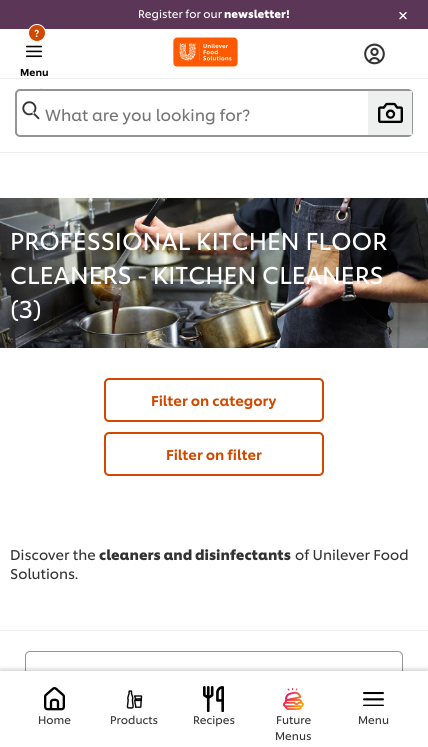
#include <cairo.h>
#include <math.h>
#include <stddef.h>


static void rgb(cairo_t *cr, int r, int g, int b)
{
	cairo_set_source_rgb(cr, r / 255.0, g / 255.0, b / 255.0);
}

static void face(cairo_t *cr, const char *family, double size, int italic, int bold)
{
	cairo_select_font_face(cr, family, italic ? CAIRO_FONT_SLANT_ITALIC : CAIRO_FONT_SLANT_NORMAL,
		bold ? CAIRO_FONT_WEIGHT_BOLD : CAIRO_FONT_WEIGHT_NORMAL);
	cairo_set_font_size(cr, size);
}

static void label(cairo_t *cr, double x, double y, const char *s)
{
	cairo_move_to(cr, x, y);
	cairo_show_text(cr, s);
}

static void rect(cairo_t *cr, double x, double y, double w, double h)
{
	cairo_rectangle(cr, x, y, w, h);
	cairo_fill(cr);
}

static void rrect(cairo_t *cr, double x, double y, double w, double h, double r)
{
	cairo_new_sub_path(cr);
	cairo_arc(cr, x + w - r, y + h - r, r, 0, M_PI / 2);
	cairo_arc(cr, x + r, y + h - r, r, M_PI / 2, M_PI);
	cairo_arc(cr, x + r, y + r, r, M_PI, 1.5 * M_PI);
	cairo_arc(cr, x + w - r, y + r, r, 1.5 * M_PI, 2 * M_PI);
	cairo_close_path(cr);
}

static void soft_shadow(cairo_t *cr, double x, double y, double w, double h, double r, double blur, double alpha)
{
	cairo_push_group_with_content(cr, CAIRO_CONTENT_ALPHA);
	cairo_set_operator(cr, CAIRO_OPERATOR_SOURCE);
	for (int i = 15; i >= -15 && fmin(w, h) + blur * i / 3 > 0; i -= 2) {
		double e = blur * i / 6;
		cairo_set_source_rgba(cr, 0, 0, 0, alpha * erfc((i - 1) / 8.5) / 2);
		rrect(cr, x - e, y - e, w + 2 * e, h + 2 * e, fmax(0, fmin(r + e + blur * .6, fmin(w, h) / 2 + e)));
		cairo_fill(cr);
	}
	cairo_pattern_t *soft = cairo_pop_group(cr);
	cairo_mask(cr, soft);
	cairo_pattern_destroy(soft);
}

static void image(cairo_t *cr, const char *path, double x, double y, double w, double h)
{
	cairo_surface_t *image = cairo_image_surface_create_from_png(path);
	cairo_save(cr);
	cairo_set_source_surface(cr, image, x, y);
	cairo_rectangle(cr, x, y, w, h);
	cairo_fill(cr);
	cairo_restore(cr);
	cairo_surface_destroy(image);
}

static void draw(cairo_t *cr) {
	rgb(cr, 255, 255, 255);
	cairo_paint(cr);
	rgb(cr, 92, 54, 87);
	rect(cr, 0, 0, 428, 29);
	face(cr, "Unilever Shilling", 11, 0, 0);
	rgb(cr, 255, 255, 255);
	label(cr, 138, 18, "Register for our");
	face(cr, "Unilever Shilling", 11, 0, 1);
	label(cr, 224, 18, "newsletter!");
	image(cr, "image0.png", 399, 12, 8, 8);
	rgb(cr, 209, 73, 0);
	cairo_arc(cr, 37, 33, 8.5, 0, 2 * M_PI);
	cairo_fill_preserve(cr);
	rgb(cr, 255, 255, 255);
	cairo_set_line_width(cr, 1);
	cairo_stroke(cr);
	face(cr, "Unilever Shilling Medium", 10, 0, 0);
	label(cr, 34, 37, "?");
	image(cr, "image1.png", 25, 45, 18, 13);
	rgb(cr, 0, 0, 0);
	label(cr, 20, 76, "Menu");
	image(cr, "image2.png", 173, 37, 65, 30);
	image(cr, "image3.png", 364, 43, 21, 22);
	rgb(cr, 238, 239, 239);
	rect(cr, 0, 78, 428, 1);
	rect(cr, 0, 152, 428, 1);
	image(cr, "image4.png", 40, 88, 2, 1);
	rrect(cr, 16, 90, 396, 46, 4);
	rgb(cr, 148, 148, 148);
	cairo_set_line_width(cr, 2);
	cairo_stroke(cr);
	image(cr, "image5.png", 22, 101, 18, 19);
	face(cr, "Unilever Shilling", 16, 0, 0);
	rgb(cr, 117, 117, 117);
	label(cr, 45, 121, "What are you looking for?");
	rgb(cr, 238, 239, 239);
	rect(cr, 368, 91, 44, 44);
	image(cr, "image6.png", 378, 102, 25, 22);
	image(cr, "image7.png", 0, 198, 428, 150);
	face(cr, "Unilever Shilling", 24, 0, 0);
	rgb(cr, 255, 255, 255);
	label(cr, 10, 250, "PROFESSIONAL KITCHEN FLOOR");
	label(cr, 10, 284, "CLEANERS - KITCHEN CLEANERS");
	label(cr, 10, 318, "(3)");
	rrect(cr, 105, 379, 218, 42, 4);
	rgb(cr, 209, 73, 0);
	cairo_stroke(cr);
	face(cr, "Unilever Shilling Medium", 14, 0, 0);
	label(cr, 151, 406, "Filter on category");
	rrect(cr, 105, 433, 218, 42, 4);
	cairo_stroke(cr);
	label(cr, 166, 460, "Filter on filter");
	face(cr, "Unilever Shilling", 14, 0, 0);
	rgb(cr, 51, 51, 51);
	label(cr, 10, 560, "Discover the");
	face(cr, "Unilever Shilling", 14, 0, 1);
	label(cr, 99, 560, "cleaners and disinfectants");
	face(cr, "Unilever Shilling", 14, 0, 0);
	label(cr, 295, 560, "of Unilever Food");
	label(cr, 10, 579, "Solutions.");
	rgb(cr, 238, 239, 239);
	rect(cr, 0, 630, 428, 1);
	rrect(cr, 25.5, 651.5, 377, 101, 4.5);
	rgb(cr, 148, 148, 148);
	cairo_set_line_width(cr, 1);
	cairo_stroke(cr);
	rgb(cr, 0, 0, 0);
	soft_shadow(cr, 0, 669, 428, 76, 0, 2, 0.17);
	rgb(cr, 255, 255, 255);
	rect(cr, 0, 671, 428, 76);
	image(cr, "image8.png", 44, 687, 21, 24);
	face(cr, "Unilever Shilling", 11, 0, 0);
	rgb(cr, 51, 51, 51);
	label(cr, 38, 724, "Home");
	image(cr, "image9.png", 126, 690, 17, 19);
	label(cr, 110, 724, "Products");
	image(cr, "image10.png", 203, 686, 21, 26);
	label(cr, 193, 724, "Recipes");
	image(cr, "image11.png", 283, 688, 21, 22);
	label(cr, 276, 724, "Future");
	label(cr, 275, 740, "Menus");
	image(cr, "image12.png", 363, 692, 21, 14);
	label(cr, 358, 724, "Menu");
}

int main(void) {
	cairo_surface_t *surface = cairo_image_surface_create(CAIRO_FORMAT_RGB24, 428, 747);
	cairo_t *cr = cairo_create(surface);
	cairo_font_options_t *options = cairo_font_options_create();
	cairo_font_options_set_hint_metrics(options, CAIRO_HINT_METRICS_OFF);
	cairo_font_options_set_hint_style(options, CAIRO_HINT_STYLE_NONE);
	cairo_set_font_options(cr, options);
	cairo_set_miter_limit(cr, 4);
	draw(cr);
	cairo_surface_write_to_png(surface, "render.png");
	cairo_font_options_destroy(options);
	cairo_destroy(cr);
	cairo_surface_destroy(surface);
	return 0;
}
